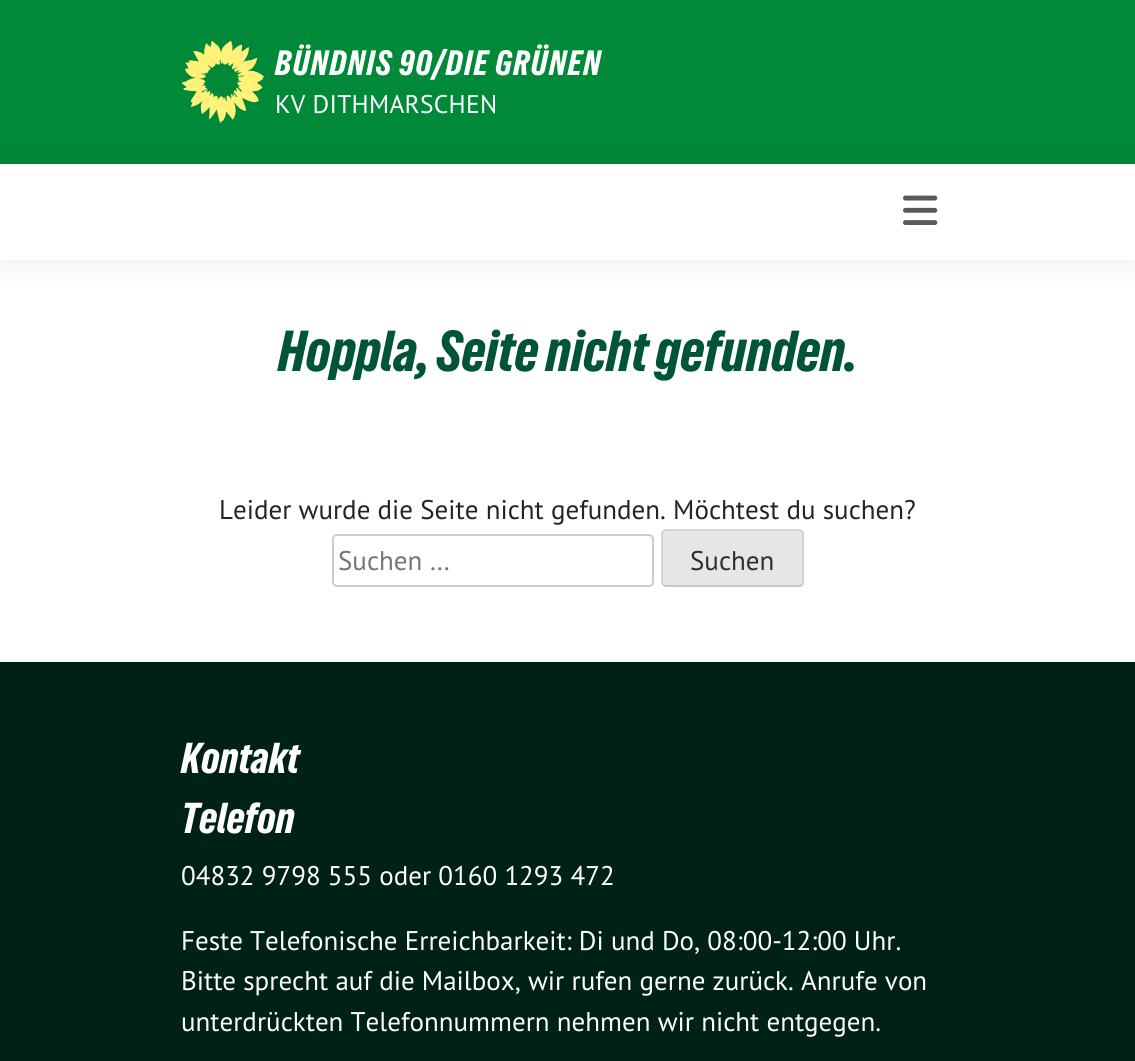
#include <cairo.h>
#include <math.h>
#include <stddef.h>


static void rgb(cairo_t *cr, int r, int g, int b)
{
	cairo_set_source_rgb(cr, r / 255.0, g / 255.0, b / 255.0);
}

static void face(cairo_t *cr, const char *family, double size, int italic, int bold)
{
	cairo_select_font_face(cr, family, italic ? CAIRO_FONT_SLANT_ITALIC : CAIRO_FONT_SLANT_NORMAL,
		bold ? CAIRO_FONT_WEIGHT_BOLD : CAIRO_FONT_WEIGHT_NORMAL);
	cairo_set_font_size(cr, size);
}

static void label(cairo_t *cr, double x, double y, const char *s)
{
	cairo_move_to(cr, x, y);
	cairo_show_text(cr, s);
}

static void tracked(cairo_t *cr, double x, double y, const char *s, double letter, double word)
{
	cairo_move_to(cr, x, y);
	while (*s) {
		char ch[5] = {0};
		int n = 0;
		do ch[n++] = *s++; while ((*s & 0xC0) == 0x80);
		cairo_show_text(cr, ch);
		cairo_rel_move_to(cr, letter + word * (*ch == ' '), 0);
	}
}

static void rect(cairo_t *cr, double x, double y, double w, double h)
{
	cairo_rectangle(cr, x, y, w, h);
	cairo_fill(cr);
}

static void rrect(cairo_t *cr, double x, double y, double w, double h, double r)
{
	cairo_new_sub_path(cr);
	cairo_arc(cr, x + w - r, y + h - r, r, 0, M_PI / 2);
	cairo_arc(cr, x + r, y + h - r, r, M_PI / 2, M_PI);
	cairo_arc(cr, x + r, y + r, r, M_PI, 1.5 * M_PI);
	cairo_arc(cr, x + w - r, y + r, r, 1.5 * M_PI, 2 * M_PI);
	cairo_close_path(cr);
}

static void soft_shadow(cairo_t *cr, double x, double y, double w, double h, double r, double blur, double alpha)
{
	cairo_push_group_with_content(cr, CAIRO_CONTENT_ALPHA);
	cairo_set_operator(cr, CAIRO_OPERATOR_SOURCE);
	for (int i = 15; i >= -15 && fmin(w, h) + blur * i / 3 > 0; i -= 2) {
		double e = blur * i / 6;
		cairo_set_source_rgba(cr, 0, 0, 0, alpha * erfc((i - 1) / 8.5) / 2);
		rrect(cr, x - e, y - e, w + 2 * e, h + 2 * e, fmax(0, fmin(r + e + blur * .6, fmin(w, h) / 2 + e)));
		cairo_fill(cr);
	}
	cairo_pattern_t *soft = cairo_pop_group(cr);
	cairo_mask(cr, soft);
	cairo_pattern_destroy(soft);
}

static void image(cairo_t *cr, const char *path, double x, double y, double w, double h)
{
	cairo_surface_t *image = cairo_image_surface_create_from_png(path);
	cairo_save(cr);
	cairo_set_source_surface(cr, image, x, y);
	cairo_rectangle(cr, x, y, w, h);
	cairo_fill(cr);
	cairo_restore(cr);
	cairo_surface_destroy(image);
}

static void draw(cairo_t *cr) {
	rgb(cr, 255, 255, 255);
	cairo_paint(cr);
	rgb(cr, 0, 137, 57);
	rect(cr, 0, 0, 1135, 164);
	image(cr, "image0.png", 182, 41, 82, 82);
	face(cr, "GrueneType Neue", 33, 0, 0);
	rgb(cr, 255, 255, 255);
	tracked(cr, 275, 75, "BÜNDNIS 90/DIE GRÜNEN", 1.5, 0);
	face(cr, "PT Sans", 25.5, 0, 0);
	tracked(cr, 275, 113, "KV DITHMARSCHEN", 0.25, 0);
	rgb(cr, 0, 0, 0);
	soft_shadow(cr, 0, 165, 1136, 96, 0, 15, 0.08);
	rgb(cr, 255, 255, 255);
	rect(cr, 0, 164, 1135, 96);
	image(cr, "image1.png", 903, 195, 35, 30);
	face(cr, "GrueneType Neue", 54, 0, 0);
	rgb(cr, 0, 84, 55);
	label(cr, 278, 371, "Hoppla, Seite nicht gefunden.");
	face(cr, "PT Sans", 27, 0, 0);
	rgb(cr, 33, 37, 41);
	label(cr, 219, 519, "Leider wurde die Seite nicht gefunden. Möchtest du suchen?");
	rrect(cr, 333, 535, 320, 51, 4);
	rgb(cr, 204, 204, 204);
	cairo_stroke(cr);
	rgb(cr, 117, 117, 117);
	label(cr, 338, 570, "Suchen …");
	rgb(cr, 230, 230, 230);
	rrect(cr, 662, 530, 142, 57, 5);
	cairo_fill(cr);
	cairo_new_path(cr);
	cairo_move_to(cr, 802, 584.5);
	cairo_curve_to(cr, 801.5, 585.5, 800.5, 586, 799.5, 586);
	cairo_line_to(cr, 666, 586);
	cairo_curve_to(cr, 665, 586, 664, 585.5, 663.5, 584.5);
	rgb(cr, 187, 187, 187);
	cairo_set_line_width(cr, 1.5);
	cairo_stroke(cr);
	cairo_new_path(cr);
	cairo_move_to(cr, 663.5, 584.5);
	cairo_curve_to(cr, 662.5, 584, 662, 583, 662, 582);
	cairo_line_to(cr, 662, 534);
	cairo_curve_to(cr, 662, 533, 662.5, 532, 663.5, 531.5);
	cairo_curve_to(cr, 664, 530.5, 665, 530, 666, 530);
	cairo_line_to(cr, 799.5, 530);
	cairo_curve_to(cr, 800.5, 530, 801.5, 530.5, 802, 531.5);
	cairo_curve_to(cr, 803, 532, 803, 533, 803, 534);
	cairo_line_to(cr, 803, 582);
	cairo_curve_to(cr, 803, 583, 803, 584, 802, 584.5);
	rgb(cr, 204, 204, 204);
	cairo_stroke(cr);
	rgb(cr, 46, 46, 46);
	label(cr, 690, 570, "Suchen");
	rgb(cr, 0, 34, 22);
	rect(cr, 0, 662, 1135, 399);
	face(cr, "GrueneType Neue", 40.5, 0, 0);
	rgb(cr, 255, 255, 255);
	label(cr, 181, 773, "Kontakt");
	label(cr, 181, 833, "Telefon");
	face(cr, "PT Sans", 27, 0, 0);
	label(cr, 181, 885, "04832 9798 555 oder 0160 1293 472");
	label(cr, 181, 950, "Feste Telefonische Erreichbarkeit: Di und Do, 08:00-12:00 Uhr.");
	label(cr, 181, 990, "Bitte sprecht auf die Mailbox, wir rufen gerne zurück. Anrufe von");
	label(cr, 181, 1031, "unterdrückten Telefonnummern nehmen wir nicht entgegen.");
}

int main(void) {
	cairo_surface_t *surface = cairo_image_surface_create(CAIRO_FORMAT_RGB24, 1135, 1061);
	cairo_t *cr = cairo_create(surface);
	cairo_font_options_t *options = cairo_font_options_create();
	cairo_font_options_set_hint_metrics(options, CAIRO_HINT_METRICS_OFF);
	cairo_font_options_set_hint_style(options, CAIRO_HINT_STYLE_NONE);
	cairo_set_font_options(cr, options);
	cairo_set_miter_limit(cr, 4);
	draw(cr);
	cairo_surface_write_to_png(surface, "render.png");
	cairo_font_options_destroy(options);
	cairo_destroy(cr);
	cairo_surface_destroy(surface);
	return 0;
}
